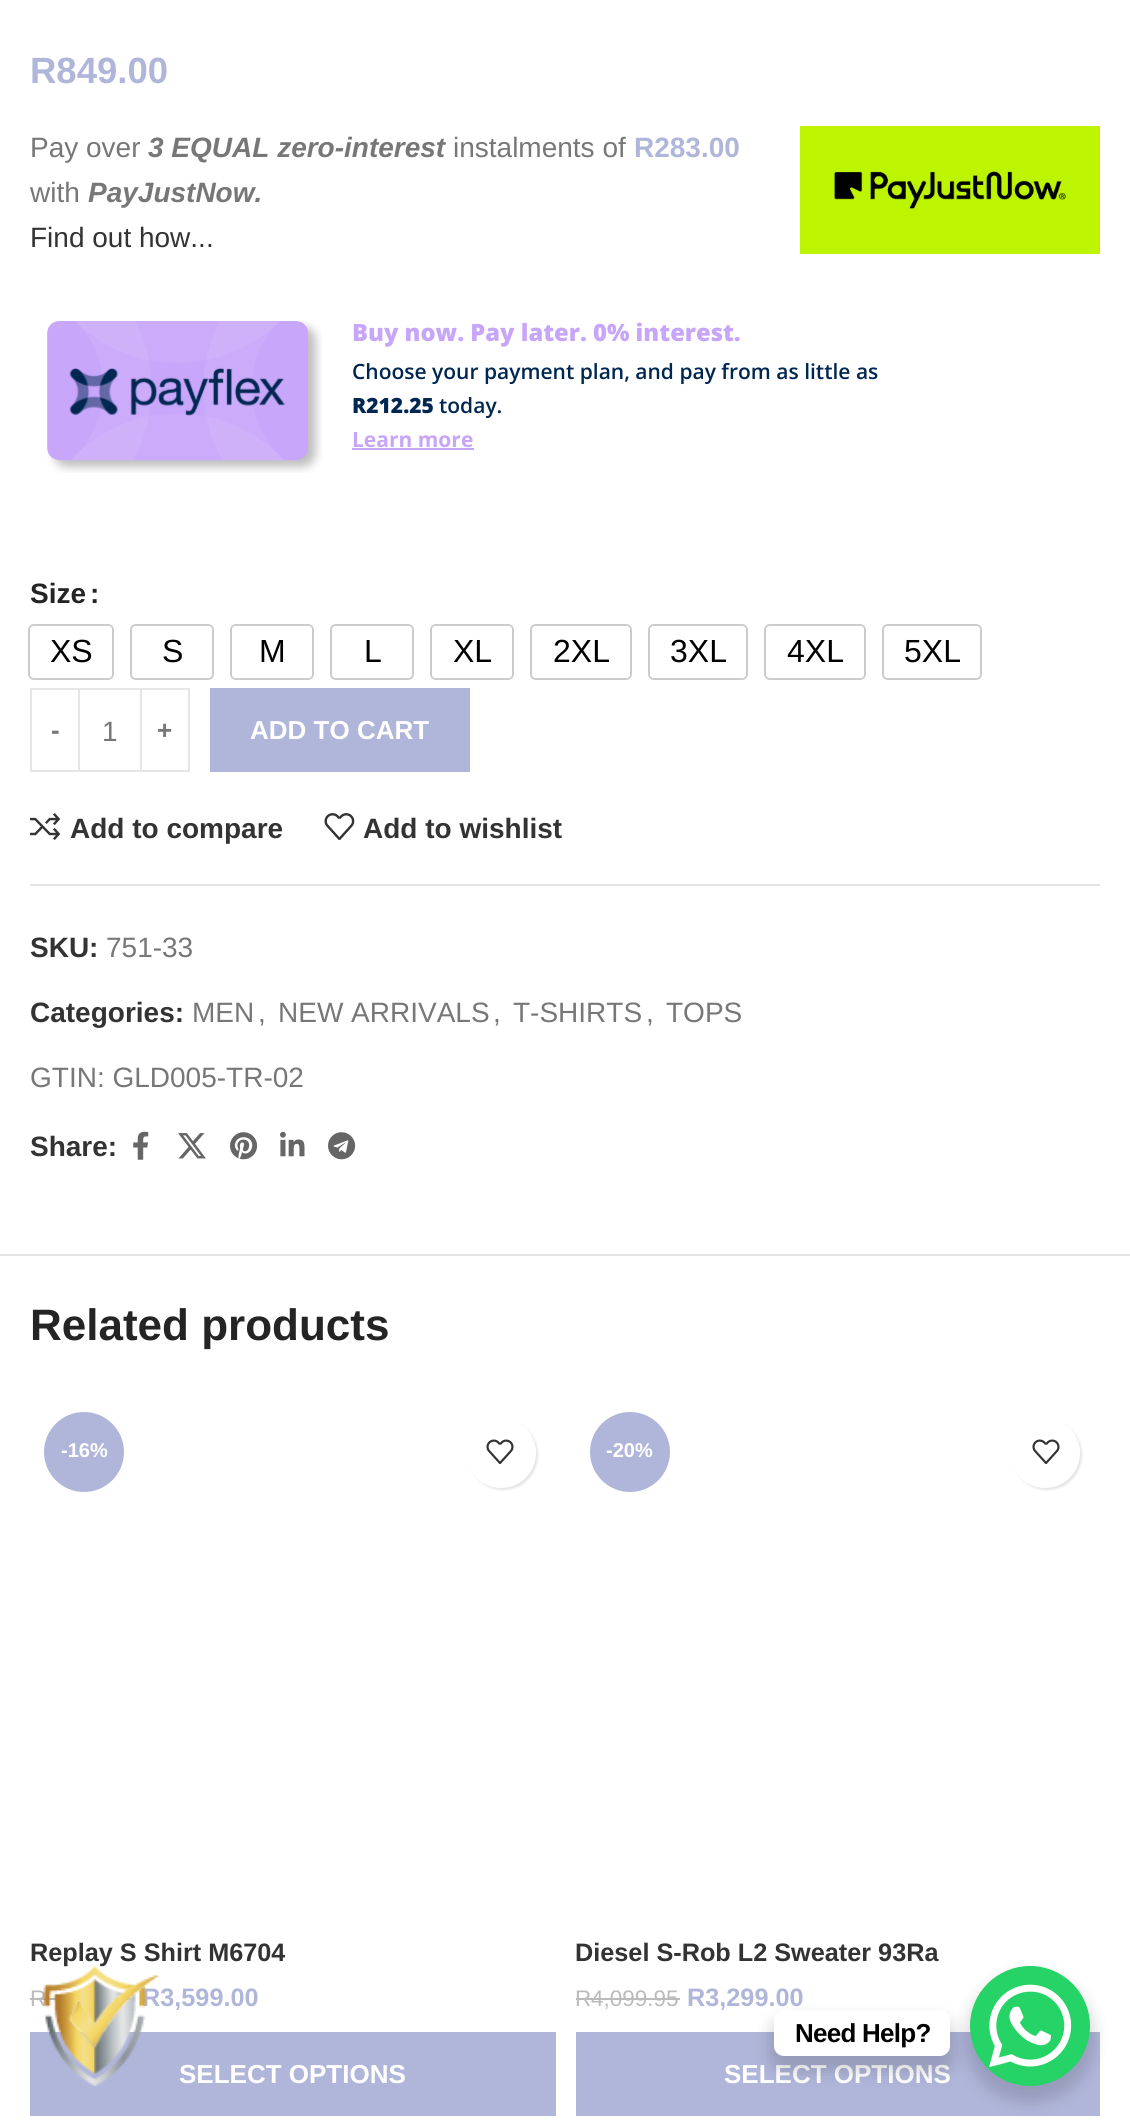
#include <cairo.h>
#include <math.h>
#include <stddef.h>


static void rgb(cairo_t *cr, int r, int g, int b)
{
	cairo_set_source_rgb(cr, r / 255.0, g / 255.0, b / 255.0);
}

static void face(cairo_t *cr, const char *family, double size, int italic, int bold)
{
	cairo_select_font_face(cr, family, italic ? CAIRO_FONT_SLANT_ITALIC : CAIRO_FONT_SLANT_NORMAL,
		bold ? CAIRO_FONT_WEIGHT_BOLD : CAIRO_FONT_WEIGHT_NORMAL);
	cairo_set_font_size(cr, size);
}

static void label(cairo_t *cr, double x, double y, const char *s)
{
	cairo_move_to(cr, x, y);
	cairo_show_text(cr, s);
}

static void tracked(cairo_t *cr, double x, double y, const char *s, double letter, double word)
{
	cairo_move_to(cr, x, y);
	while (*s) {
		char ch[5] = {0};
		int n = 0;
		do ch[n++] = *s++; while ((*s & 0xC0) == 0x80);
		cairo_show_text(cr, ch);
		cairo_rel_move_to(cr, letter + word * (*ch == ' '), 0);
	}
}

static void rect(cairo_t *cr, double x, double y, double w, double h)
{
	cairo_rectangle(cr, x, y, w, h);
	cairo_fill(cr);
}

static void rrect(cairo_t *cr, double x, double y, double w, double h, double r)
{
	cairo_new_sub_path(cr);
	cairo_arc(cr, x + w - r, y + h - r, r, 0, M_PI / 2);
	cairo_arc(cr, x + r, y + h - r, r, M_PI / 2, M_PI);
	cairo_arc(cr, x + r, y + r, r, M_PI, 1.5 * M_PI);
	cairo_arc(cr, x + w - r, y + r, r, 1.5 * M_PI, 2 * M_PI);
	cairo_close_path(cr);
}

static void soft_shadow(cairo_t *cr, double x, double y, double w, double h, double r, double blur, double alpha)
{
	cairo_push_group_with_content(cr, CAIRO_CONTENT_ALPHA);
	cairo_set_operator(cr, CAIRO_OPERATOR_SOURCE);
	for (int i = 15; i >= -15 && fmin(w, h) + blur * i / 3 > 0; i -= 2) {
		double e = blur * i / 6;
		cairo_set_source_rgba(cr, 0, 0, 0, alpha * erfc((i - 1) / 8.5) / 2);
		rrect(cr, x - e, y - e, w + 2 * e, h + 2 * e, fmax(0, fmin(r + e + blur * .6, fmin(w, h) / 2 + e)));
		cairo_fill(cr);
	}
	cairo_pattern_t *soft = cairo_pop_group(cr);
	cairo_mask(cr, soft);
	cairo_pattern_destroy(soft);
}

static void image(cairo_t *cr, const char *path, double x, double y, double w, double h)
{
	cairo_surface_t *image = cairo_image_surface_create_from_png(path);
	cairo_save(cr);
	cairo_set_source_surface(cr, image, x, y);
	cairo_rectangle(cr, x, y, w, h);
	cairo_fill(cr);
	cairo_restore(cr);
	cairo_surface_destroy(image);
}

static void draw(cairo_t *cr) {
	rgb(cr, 255, 255, 255);
	cairo_paint(cr);
	face(cr, "Liberation Sans", 36.5, 0, 1);
	rgb(cr, 176, 182, 218);
	label(cr, 30, 83, "R849.00");
	face(cr, "Liberation Sans", 28, 0, 0);
	rgb(cr, 119, 119, 119);
	label(cr, 30, 157, "Pay over");
	face(cr, "Liberation Sans", 28, 1, 1);
	label(cr, 148, 157, "3 EQUAL zero-interest");
	face(cr, "Liberation Sans", 28, 0, 0);
	label(cr, 453, 157, "instalments of");
	face(cr, "Liberation Sans", 28, 0, 1);
	rgb(cr, 176, 182, 218);
	label(cr, 634, 157, "R283.00");
	image(cr, "image0.png", 800, 126, 300, 128);
	face(cr, "Liberation Sans", 28, 0, 0);
	rgb(cr, 119, 119, 119);
	label(cr, 30, 202, "with");
	face(cr, "Liberation Sans", 28, 1, 1);
	label(cr, 88, 202, "PayJustNow.");
	face(cr, "Liberation Sans", 28, 0, 0);
	rgb(cr, 51, 51, 51);
	label(cr, 30, 247, "Find out how...");
	image(cr, "image1.png", 47, 321, 275, 152);
	face(cr, "Open Sans ExtraBold", 23.75, 0, 0);
	rgb(cr, 199, 165, 249);
	label(cr, 352, 341, "Buy now. Pay later. 0% interest.");
	face(cr, "Open Sans SemiBold", 21, 0, 0);
	rgb(cr, 0, 39, 81);
	label(cr, 352, 379, "Choose your payment plan, and pay from as little as");
	face(cr, "Open Sans ExtraBold", 21, 0, 0);
	label(cr, 352, 413, "R212.25");
	face(cr, "Open Sans SemiBold", 21, 0, 0);
	label(cr, 439, 413, "today.");
	face(cr, "Open Sans", 21, 0, 1);
	rgb(cr, 199, 165, 249);
	label(cr, 352, 447, "Learn more");
	rect(cr, 352, 448, 122, 2);
	face(cr, "Liberation Sans", 28, 0, 1);
	rgb(cr, 36, 36, 36);
	label(cr, 30, 603, "Size");
	label(cr, 90, 603, ":");
	rrect(cr, 29, 625, 84, 54, 5);
	rgb(cr, 204, 204, 204);
	cairo_stroke(cr);
	rgb(cr, 255, 255, 255);
	rrect(cr, 30, 626, 82, 52, 4);
	cairo_fill(cr);
	face(cr, "Liberation Sans", 32, 0, 0);
	rgb(cr, 0, 0, 0);
	label(cr, 50, 662, "XS");
	rrect(cr, 131, 625, 82, 54, 5);
	rgb(cr, 204, 204, 204);
	cairo_stroke(cr);
	rgb(cr, 255, 255, 255);
	rrect(cr, 132, 626, 80, 52, 4);
	cairo_fill(cr);
	rgb(cr, 0, 0, 0);
	label(cr, 162, 662, "S");
	rrect(cr, 231, 625, 82, 54, 5);
	rgb(cr, 204, 204, 204);
	cairo_stroke(cr);
	rgb(cr, 255, 255, 255);
	rrect(cr, 232, 626, 80, 52, 4);
	cairo_fill(cr);
	rgb(cr, 0, 0, 0);
	label(cr, 259, 662, "M");
	rrect(cr, 331, 625, 82, 54, 5);
	rgb(cr, 204, 204, 204);
	cairo_stroke(cr);
	rgb(cr, 255, 255, 255);
	rrect(cr, 332, 626, 80, 52, 4);
	cairo_fill(cr);
	rgb(cr, 0, 0, 0);
	label(cr, 364, 662, "L");
	rrect(cr, 431, 625, 82, 54, 5);
	rgb(cr, 204, 204, 204);
	cairo_stroke(cr);
	rgb(cr, 255, 255, 255);
	rrect(cr, 432, 626, 80, 52, 4);
	cairo_fill(cr);
	rgb(cr, 0, 0, 0);
	label(cr, 453, 662, "XL");
	rrect(cr, 531, 625, 100, 54, 5);
	rgb(cr, 204, 204, 204);
	cairo_stroke(cr);
	rgb(cr, 255, 255, 255);
	rrect(cr, 532, 626, 98, 52, 4);
	cairo_fill(cr);
	rgb(cr, 0, 0, 0);
	label(cr, 553, 662, "2XL");
	rrect(cr, 649, 625, 98, 54, 5);
	rgb(cr, 204, 204, 204);
	cairo_stroke(cr);
	rgb(cr, 255, 255, 255);
	rrect(cr, 650, 626, 96, 52, 4);
	cairo_fill(cr);
	rgb(cr, 0, 0, 0);
	label(cr, 670, 662, "3XL");
	rrect(cr, 765, 625, 100, 54, 5);
	rgb(cr, 204, 204, 204);
	cairo_stroke(cr);
	rgb(cr, 255, 255, 255);
	rrect(cr, 766, 626, 98, 52, 4);
	cairo_fill(cr);
	rgb(cr, 0, 0, 0);
	label(cr, 787, 662, "4XL");
	rrect(cr, 883, 625, 98, 54, 5);
	rgb(cr, 204, 204, 204);
	cairo_stroke(cr);
	rgb(cr, 255, 255, 255);
	rrect(cr, 884, 626, 96, 52, 4);
	cairo_fill(cr);
	rgb(cr, 0, 0, 0);
	label(cr, 904, 662, "5XL");
	cairo_rectangle(cr, 31, 689, 48, 82);
	rgb(cr, 230, 230, 230);
	cairo_stroke(cr);
	face(cr, "Liberation Sans", 26, 0, 1);
	rgb(cr, 119, 119, 119);
	label(cr, 51, 739, "-");
	rgb(cr, 230, 230, 230);
	rect(cr, 80, 688, 60, 2);
	rect(cr, 80, 770, 60, 2);
	face(cr, "Liberation Sans", 28, 0, 0);
	rgb(cr, 119, 119, 119);
	label(cr, 102, 741, "1");
	cairo_rectangle(cr, 141, 689, 48, 82);
	rgb(cr, 230, 230, 230);
	cairo_stroke(cr);
	face(cr, "Liberation Sans", 26, 0, 1);
	rgb(cr, 119, 119, 119);
	label(cr, 157, 739, "+");
	rgb(cr, 176, 182, 218);
	rect(cr, 210, 688, 260, 84);
	rgb(cr, 255, 255, 255);
	label(cr, 250, 739, "ADD TO CART");
	image(cr, "image2.png", 30, 813, 31, 27);
	face(cr, "Liberation Sans", 28, 0, 1);
	rgb(cr, 51, 51, 51);
	label(cr, 70, 838, "Add to compare");
	image(cr, "image3.png", 324, 813, 31, 27);
	label(cr, 363, 838, "Add to wishlist");
	rgb(cr, 228, 228, 228);
	rect(cr, 30, 884, 1070, 2);
	rgb(cr, 51, 51, 51);
	label(cr, 30, 957, "SKU:");
	face(cr, "Liberation Sans", 28, 0, 0);
	rgb(cr, 119, 119, 119);
	label(cr, 106, 957, "751-33");
	face(cr, "Liberation Sans", 28, 0, 1);
	rgb(cr, 51, 51, 51);
	label(cr, 30, 1022, "Categories:");
	face(cr, "Liberation Sans", 28, 0, 0);
	rgb(cr, 119, 119, 119);
	label(cr, 192, 1022, "MEN");
	label(cr, 258, 1022, ",");
	label(cr, 278, 1022, "NEW ARRIVALS");
	label(cr, 493, 1022, ",");
	label(cr, 513, 1022, "T-SHIRTS");
	label(cr, 646, 1022, ",");
	label(cr, 666, 1022, "TOPS");
	label(cr, 30, 1087, "GTIN: GLD005-TR-02");
	face(cr, "Liberation Sans", 28, 0, 1);
	rgb(cr, 51, 51, 51);
	label(cr, 30, 1156, "Share:");
	image(cr, "image4.png", 133, 1131, 16, 29);
	image(cr, "image5.png", 178, 1133, 28, 26);
	image(cr, "image6.png", 230, 1132, 28, 28);
	image(cr, "image7.png", 280, 1131, 25, 26);
	image(cr, "image8.png", 328, 1132, 28, 28);
	rgb(cr, 228, 228, 228);
	rect(cr, 0, 1254, 1130, 2);
	face(cr, "Liberation Sans", 44, 0, 1);
	rgb(cr, 36, 36, 36);
	label(cr, 30, 1340, "Related products");
	rgb(cr, 176, 182, 218);
	cairo_new_path(cr);
	cairo_arc(cr, 84, 1452, 40, 0, 2 * M_PI);
	cairo_fill(cr);
	face(cr, "Liberation Sans", 20, 0, 1);
	rgb(cr, 255, 255, 255);
	label(cr, 61, 1457, "-16%");
	rgb(cr, 0, 0, 0);
	soft_shadow(cr, 468, 1420, 70, 70, 35, 1, 0.1);
	rgb(cr, 255, 255, 255);
	cairo_arc(cr, 501, 1453, 35, 0, 2 * M_PI);
	cairo_fill(cr);
	image(cr, "image9.png", 486, 1439, 28, 25);
	face(cr, "Liberation Sans", 25.25, 0, 1);
	rgb(cr, 51, 51, 51);
	label(cr, 30, 1961, "Replay S Shirt M6704");
	face(cr, "Liberation Sans", 22.5, 0, 0);
	rgb(cr, 187, 187, 187);
	label(cr, 30, 2006, "R");
	rect(cr, 30, 1998, 104, 2);
	face(cr, "Liberation Sans", 25.25, 0, 1);
	rgb(cr, 176, 182, 218);
	label(cr, 142, 2006, "R3,599.00");
	rect(cr, 30, 2032, 526, 84);
	face(cr, "Liberation Sans", 26, 0, 1);
	rgb(cr, 255, 255, 255);
	label(cr, 179, 2083, "SELECT OPTIONS");
	rgb(cr, 176, 182, 218);
	cairo_new_path(cr);
	cairo_arc(cr, 630, 1452, 40, 0, 2 * M_PI);
	cairo_fill(cr);
	face(cr, "Liberation Sans", 20, 0, 1);
	rgb(cr, 255, 255, 255);
	label(cr, 606, 1457, "-20%");
	rgb(cr, 0, 0, 0);
	soft_shadow(cr, 1012, 1420, 70, 70, 35, 1, 0.1);
	rgb(cr, 255, 255, 255);
	cairo_arc(cr, 1045, 1453, 35, 0, 2 * M_PI);
	cairo_fill(cr);
	image(cr, "image9.png", 1032, 1439, 28, 25);
	face(cr, "Liberation Sans", 25.25, 0, 1);
	rgb(cr, 51, 51, 51);
	label(cr, 575, 1961, "Diesel S-Rob L2 Sweater 93Ra");
	face(cr, "Liberation Sans", 22.5, 0, 0);
	rgb(cr, 187, 187, 187);
	label(cr, 575, 2006, "R");
	rect(cr, 576, 1998, 16, 2);
	label(cr, 591, 2006, "4,099.95");
	rect(cr, 592, 1998, 88, 2);
	face(cr, "Liberation Sans", 25.25, 0, 1);
	rgb(cr, 176, 182, 218);
	label(cr, 687, 2006, "R3,299.00");
	rect(cr, 576, 2032, 524, 84);
	face(cr, "Liberation Sans", 26, 0, 1);
	rgb(cr, 255, 255, 255);
	label(cr, 724, 2083, "SELECT OPTIONS");
	image(cr, "image10.png", 43, 1966, 116, 120);
	rgb(cr, 0, 0, 0);
	soft_shadow(cr, 966, 1974, 128, 128, 64, 8, 0.15);
	rgb(cr, 37, 211, 102);
	cairo_arc(cr, 1030, 2026, 60, 0, 2 * M_PI);
	cairo_fill(cr);
	rgb(cr, 0, 0, 0);
	soft_shadow(cr, 770, 2018, 184, 54, 14, 8, 0.15);
	rgb(cr, 255, 255, 255);
	rrect(cr, 774, 2010, 176, 46, 10);
	cairo_fill(cr);
	rgb(cr, 0, 0, 0);
	tracked(cr, 795, 2042, "Need Help?", -0.75, 0);
	image(cr, "image11.png", 989, 1984, 83, 84);
}

int main(void) {
	cairo_surface_t *surface = cairo_image_surface_create(CAIRO_FORMAT_RGB24, 1130, 2125);
	cairo_t *cr = cairo_create(surface);
	cairo_font_options_t *options = cairo_font_options_create();
	cairo_font_options_set_hint_metrics(options, CAIRO_HINT_METRICS_OFF);
	cairo_font_options_set_hint_style(options, CAIRO_HINT_STYLE_NONE);
	cairo_set_font_options(cr, options);
	cairo_set_miter_limit(cr, 4);
	draw(cr);
	cairo_surface_write_to_png(surface, "render.png");
	cairo_font_options_destroy(options);
	cairo_destroy(cr);
	cairo_surface_destroy(surface);
	return 0;
}
